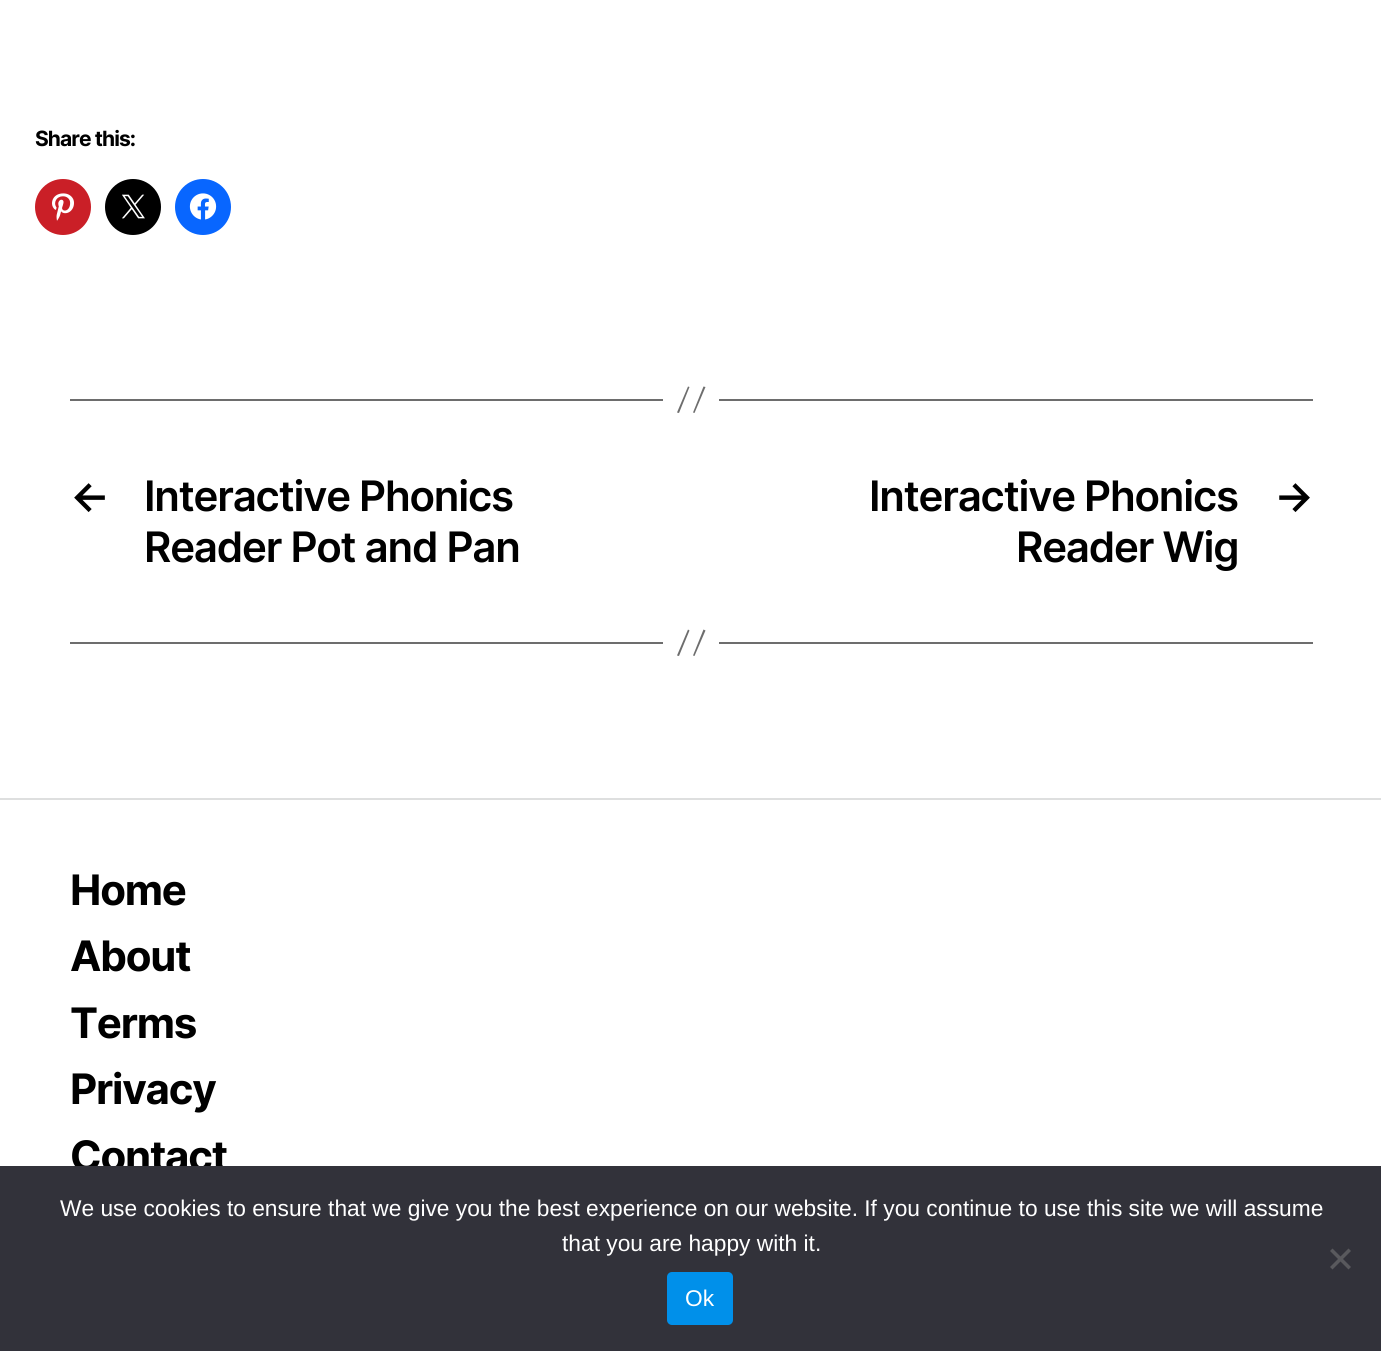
#include <cairo.h>
#include <math.h>
#include <stddef.h>


static void rgb(cairo_t *cr, int r, int g, int b)
{
	cairo_set_source_rgb(cr, r / 255.0, g / 255.0, b / 255.0);
}

static void face(cairo_t *cr, const char *family, double size, int italic, int bold)
{
	cairo_select_font_face(cr, family, italic ? CAIRO_FONT_SLANT_ITALIC : CAIRO_FONT_SLANT_NORMAL,
		bold ? CAIRO_FONT_WEIGHT_BOLD : CAIRO_FONT_WEIGHT_NORMAL);
	cairo_set_font_size(cr, size);
}

static void label(cairo_t *cr, double x, double y, const char *s)
{
	cairo_move_to(cr, x, y);
	cairo_show_text(cr, s);
}

static void tracked(cairo_t *cr, double x, double y, const char *s, double letter, double word)
{
	cairo_move_to(cr, x, y);
	while (*s) {
		char ch[5] = {0};
		int n = 0;
		do ch[n++] = *s++; while ((*s & 0xC0) == 0x80);
		cairo_show_text(cr, ch);
		cairo_rel_move_to(cr, letter + word * (*ch == ' '), 0);
	}
}

static void rect(cairo_t *cr, double x, double y, double w, double h)
{
	cairo_rectangle(cr, x, y, w, h);
	cairo_fill(cr);
}

static void rrect(cairo_t *cr, double x, double y, double w, double h, double r)
{
	cairo_new_sub_path(cr);
	cairo_arc(cr, x + w - r, y + h - r, r, 0, M_PI / 2);
	cairo_arc(cr, x + r, y + h - r, r, M_PI / 2, M_PI);
	cairo_arc(cr, x + r, y + r, r, M_PI, 1.5 * M_PI);
	cairo_arc(cr, x + w - r, y + r, r, 1.5 * M_PI, 2 * M_PI);
	cairo_close_path(cr);
}

static void image(cairo_t *cr, const char *path, double x, double y, double w, double h)
{
	cairo_surface_t *image = cairo_image_surface_create_from_png(path);
	cairo_save(cr);
	cairo_set_source_surface(cr, image, x, y);
	cairo_rectangle(cr, x, y, w, h);
	cairo_fill(cr);
	cairo_restore(cr);
	cairo_surface_destroy(image);
}

static void draw(cairo_t *cr) {
	rgb(cr, 255, 255, 255);
	cairo_paint(cr);
	face(cr, "Inter", 21, 0, 1);
	rgb(cr, 0, 0, 0);
	tracked(cr, 35, 146, "Share this:", -0.9, 0);
	rgb(cr, 202, 31, 39);
	cairo_new_path(cr);
	cairo_arc(cr, 63, 207, 28, 0, 2 * M_PI);
	cairo_fill(cr);
	image(cr, "image0.png", 52, 193, 22, 28);
	rgb(cr, 0, 0, 0);
	cairo_arc(cr, 133, 207, 28, 0, 2 * M_PI);
	cairo_fill(cr);
	image(cr, "image1.png", 122, 194, 23, 25);
	rgb(cr, 8, 102, 255);
	cairo_arc(cr, 203, 207, 28, 0, 2 * M_PI);
	cairo_fill(cr);
	image(cr, "image2.png", 189, 193, 28, 27);
	rgb(cr, 109, 109, 109);
	rect(cr, 719, 399, 594, 2);
	rect(cr, 70, 399, 593, 2);
	cairo_new_path(cr);
	cairo_move_to(cr, 688, 386.5);
	cairo_line_to(cr, 689.5, 387);
	cairo_line_to(cr, 679, 413);
	cairo_line_to(cr, 677, 412.5);
	cairo_close_path(cr);
	cairo_move_to(cr, 703.5, 386.5);
	cairo_line_to(cr, 705.5, 387);
	cairo_line_to(cr, 694.5, 413);
	cairo_line_to(cr, 693, 412.5);
	cairo_close_path(cr);
	cairo_fill(cr);
	face(cr, "Inter SemiBold", 42, 0, 0);
	rgb(cr, 0, 0, 0);
	tracked(cr, 70, 511, "←", -1.2, 0);
	tracked(cr, 144, 511, "Interactive Phonics", -1.2, 0);
	tracked(cr, 144, 562, "Reader Pot and Pan", -1.2, 0);
	tracked(cr, 869, 511, "Interactive Phonics", -1.2, 0);
	tracked(cr, 1016, 562, "Reader Wig", -1.2, 0);
	tracked(cr, 1274, 511, "→", -1.2, 0);
	rgb(cr, 109, 109, 109);
	rect(cr, 719, 642, 594, 2);
	rect(cr, 70, 642, 593, 2);
	cairo_new_path(cr);
	cairo_move_to(cr, 688, 629.5);
	cairo_line_to(cr, 689.5, 630.5);
	cairo_line_to(cr, 679, 656);
	cairo_line_to(cr, 677, 655.5);
	cairo_close_path(cr);
	cairo_move_to(cr, 703.5, 629.5);
	cairo_line_to(cr, 705.5, 630.5);
	cairo_line_to(cr, 694.5, 656);
	cairo_line_to(cr, 693, 655.5);
	cairo_close_path(cr);
	cairo_fill(cr);
	rgb(cr, 222, 223, 223);
	rect(cr, 0, 798, 1381, 2);
	face(cr, "Inter", 42, 0, 1);
	rgb(cr, 0, 0, 0);
	tracked(cr, 70, 905, "Home", -1.2, 0);
	tracked(cr, 70, 971, "About", -1.2, 0);
	tracked(cr, 70, 1038, "Terms", -1.2, 0);
	tracked(cr, 70, 1104, "Privacy", -1.2, 0);
	tracked(cr, 70, 1171, "Contact", -1.2, 0);
	rgb(cr, 50, 50, 58);
	rect(cr, 0, 1166, 1381, 185);
	face(cr, "Liberation Sans", 22.75, 0, 0);
	rgb(cr, 255, 255, 255);
	label(cr, 60, 1216, "We use cookies to ensure that we give you the best experience on our website. If you continue to use this site we will assume");
	label(cr, 562, 1251, "that you are happy with it.");
	rgb(cr, 89, 89, 93);
	cairo_new_path(cr);
	cairo_move_to(cr, 1348.5, 1248.5);
	cairo_line_to(cr, 1351, 1251);
	cairo_line_to(cr, 1332.5, 1269.5);
	cairo_line_to(cr, 1330, 1267);
	cairo_close_path(cr);
	cairo_fill(cr);
	cairo_new_path(cr);
	cairo_move_to(cr, 1330, 1251);
	cairo_line_to(cr, 1332.5, 1248.5);
	cairo_line_to(cr, 1351, 1267);
	cairo_line_to(cr, 1348.5, 1269.5);
	cairo_close_path(cr);
	cairo_fill(cr);
	rgb(cr, 0, 144, 234);
	rrect(cr, 667, 1272, 66, 53, 5);
	cairo_fill(cr);
	rgb(cr, 255, 255, 255);
	label(cr, 685, 1306, "Ok");
}

int main(void) {
	cairo_surface_t *surface = cairo_image_surface_create(CAIRO_FORMAT_RGB24, 1381, 1351);
	cairo_t *cr = cairo_create(surface);
	cairo_font_options_t *options = cairo_font_options_create();
	cairo_font_options_set_hint_metrics(options, CAIRO_HINT_METRICS_OFF);
	cairo_font_options_set_hint_style(options, CAIRO_HINT_STYLE_NONE);
	cairo_set_font_options(cr, options);
	cairo_set_miter_limit(cr, 4);
	draw(cr);
	cairo_surface_write_to_png(surface, "render.png");
	cairo_font_options_destroy(options);
	cairo_destroy(cr);
	cairo_surface_destroy(surface);
	return 0;
}
